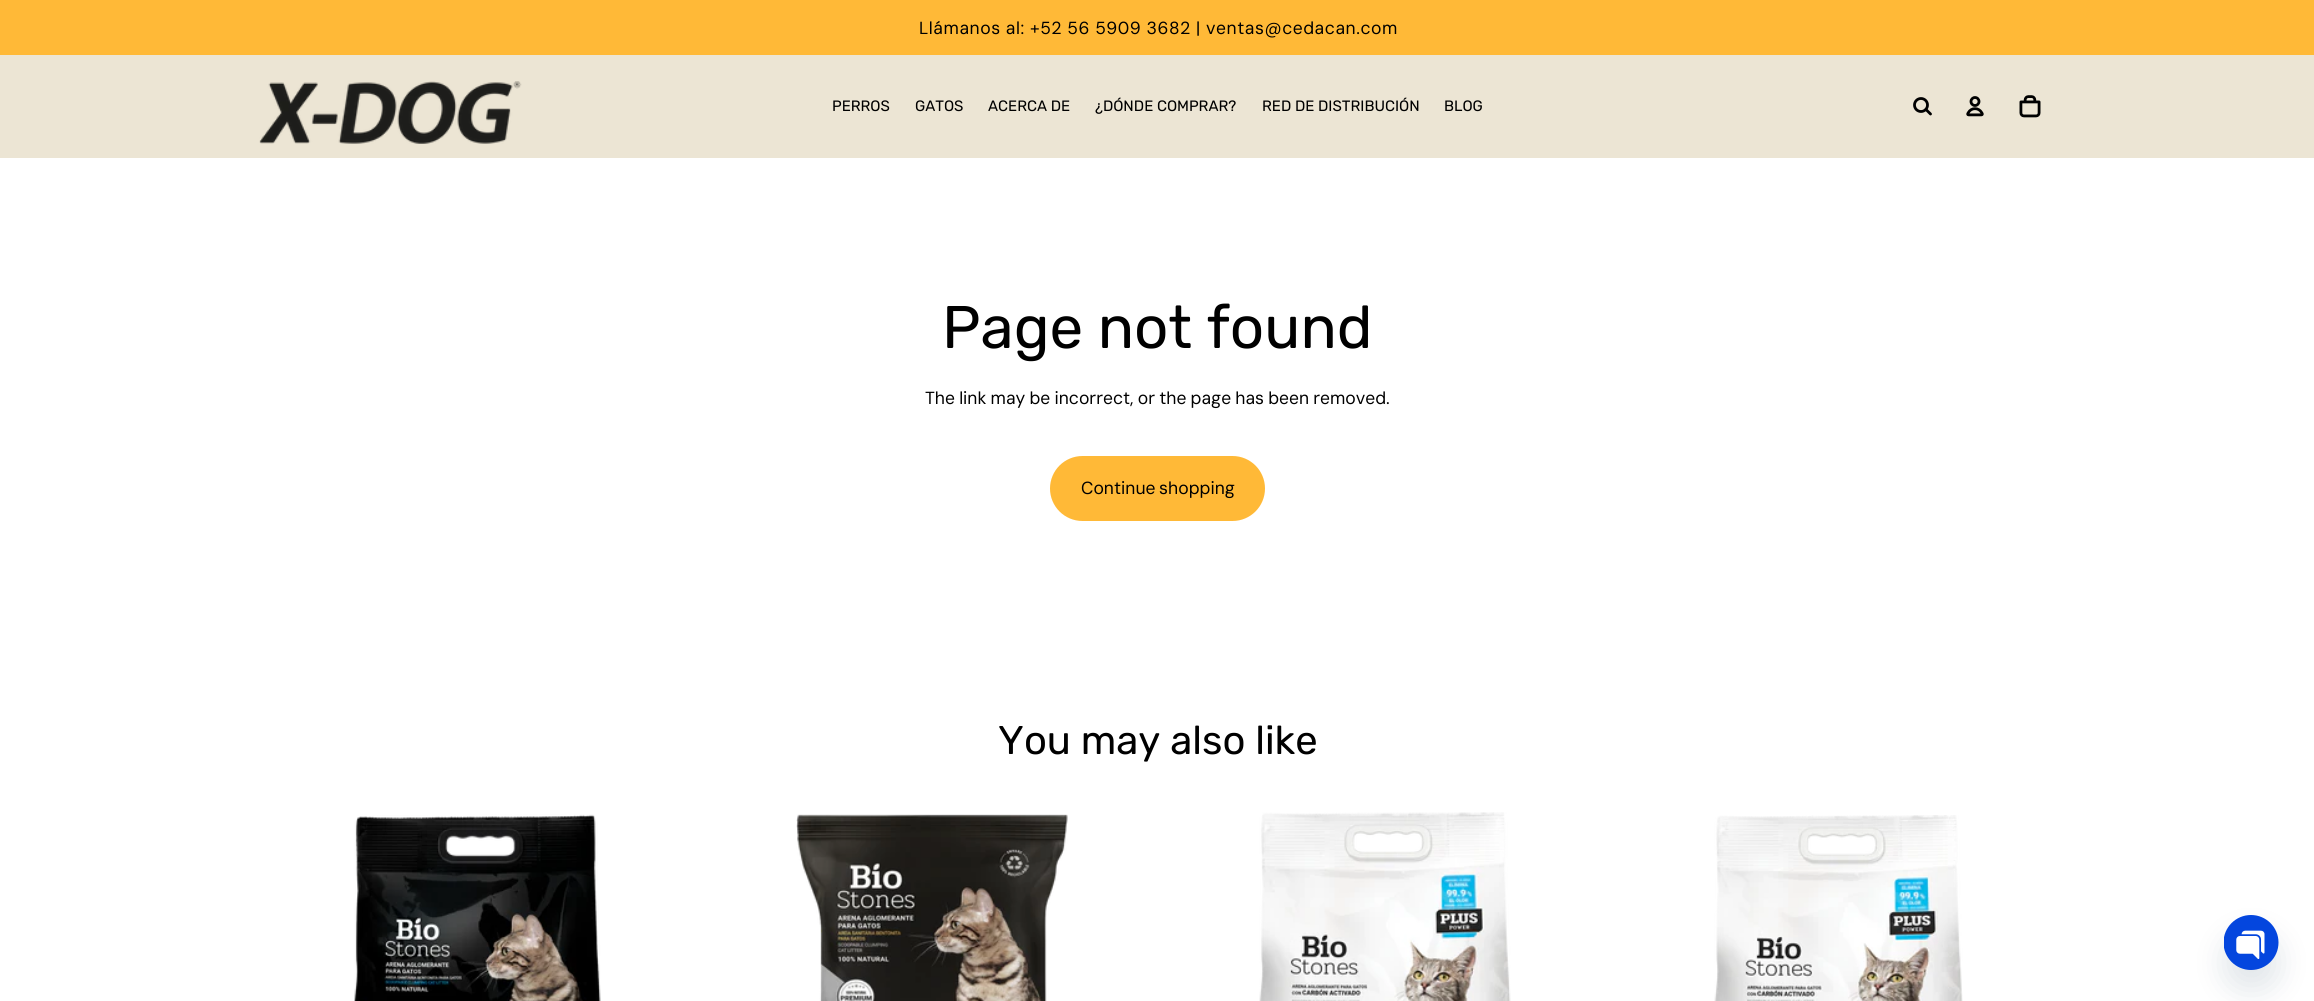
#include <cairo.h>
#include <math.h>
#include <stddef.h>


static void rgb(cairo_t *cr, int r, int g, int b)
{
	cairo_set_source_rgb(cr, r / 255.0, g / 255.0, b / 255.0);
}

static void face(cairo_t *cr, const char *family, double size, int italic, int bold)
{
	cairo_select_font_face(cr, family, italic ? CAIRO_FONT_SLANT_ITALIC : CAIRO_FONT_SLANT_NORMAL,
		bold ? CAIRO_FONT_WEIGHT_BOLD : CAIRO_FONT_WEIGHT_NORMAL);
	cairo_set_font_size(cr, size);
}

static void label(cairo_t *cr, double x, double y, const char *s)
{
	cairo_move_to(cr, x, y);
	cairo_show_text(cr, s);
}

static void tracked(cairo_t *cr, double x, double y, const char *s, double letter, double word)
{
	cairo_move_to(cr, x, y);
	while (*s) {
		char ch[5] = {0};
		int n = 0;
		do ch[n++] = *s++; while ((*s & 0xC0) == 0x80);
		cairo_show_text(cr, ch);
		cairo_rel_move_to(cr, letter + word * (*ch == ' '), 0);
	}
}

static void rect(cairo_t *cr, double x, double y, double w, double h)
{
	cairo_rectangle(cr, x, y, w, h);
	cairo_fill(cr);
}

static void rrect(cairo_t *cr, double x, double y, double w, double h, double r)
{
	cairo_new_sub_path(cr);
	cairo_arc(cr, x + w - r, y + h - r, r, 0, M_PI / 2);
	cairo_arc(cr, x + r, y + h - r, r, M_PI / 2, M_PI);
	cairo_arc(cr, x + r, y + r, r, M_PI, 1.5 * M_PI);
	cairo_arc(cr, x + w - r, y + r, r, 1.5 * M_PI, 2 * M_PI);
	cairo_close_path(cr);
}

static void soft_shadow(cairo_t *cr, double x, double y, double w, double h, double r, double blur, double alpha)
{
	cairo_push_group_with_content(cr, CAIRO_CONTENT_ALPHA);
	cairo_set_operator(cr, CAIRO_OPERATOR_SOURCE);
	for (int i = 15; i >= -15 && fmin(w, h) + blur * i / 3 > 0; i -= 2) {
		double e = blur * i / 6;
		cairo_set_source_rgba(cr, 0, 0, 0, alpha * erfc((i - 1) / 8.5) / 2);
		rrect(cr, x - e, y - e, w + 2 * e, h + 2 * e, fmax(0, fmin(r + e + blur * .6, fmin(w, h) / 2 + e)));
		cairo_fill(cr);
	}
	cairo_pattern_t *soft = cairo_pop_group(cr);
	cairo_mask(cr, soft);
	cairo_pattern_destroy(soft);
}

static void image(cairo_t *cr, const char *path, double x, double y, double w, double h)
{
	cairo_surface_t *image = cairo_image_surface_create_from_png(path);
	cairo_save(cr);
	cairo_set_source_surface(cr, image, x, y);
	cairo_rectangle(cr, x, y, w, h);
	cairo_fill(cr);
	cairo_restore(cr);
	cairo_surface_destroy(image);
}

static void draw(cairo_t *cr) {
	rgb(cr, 255, 255, 255);
	cairo_paint(cr);
	rgb(cr, 255, 185, 55);
	rect(cr, 0, 0, 2314, 55);
	face(cr, "DM Sans", 17.5, 0, 0);
	rgb(cr, 0, 0, 0);
	tracked(cr, 919, 34, "Llámanos al: +52 56 5909 3682 | ventas@cedacan.com", 0.53, 0);
	rgb(cr, 236, 229, 212);
	rect(cr, 0, 55, 2314, 103);
	image(cr, "image0.png", 259, 81, 263, 63);
	face(cr, "Rubik", 15, 0, 0);
	rgb(cr, 0, 0, 0);
	label(cr, 832, 111, "PERROS");
	label(cr, 915, 111, "GATOS");
	label(cr, 988, 111, "ACERCA DE");
	label(cr, 1095, 111, "¿DÓNDE COMPRAR?");
	label(cr, 1262, 111, "RED DE DISTRIBUCIÓN");
	label(cr, 1444, 111, "BLOG");
	cairo_new_path(cr);
	cairo_arc(cr, 1921, 105, 6.5, 0, 2 * M_PI);
	cairo_set_line_width(cr, 2.8);
	cairo_stroke(cr);
	cairo_new_path(cr);
	cairo_move_to(cr, 1926, 109.5);
	cairo_line_to(cr, 1930.5, 114);
	cairo_set_line_cap(cr, CAIRO_LINE_CAP_ROUND);
	cairo_set_line_join(cr, CAIRO_LINE_JOIN_ROUND);
	cairo_stroke(cr);
	image(cr, "image1.png", 1966, 96, 18, 21);
	image(cr, "image2.png", 2019, 95, 22, 23);
	face(cr, "Rubik", 60, 0, 0);
	label(cr, 942, 348, "Page not found");
	face(cr, "DM Sans", 17.5, 0, 0);
	tracked(cr, 925, 404, "The link may be incorrect, or the page has been removed.", 0, -0.5);
	rgb(cr, 255, 185, 55);
	rrect(cr, 1050, 456, 215, 65, 32.5);
	cairo_fill(cr);
	rgb(cr, 0, 0, 0);
	tracked(cr, 1081, 494, "Continue shopping", 0, -1);
	face(cr, "Rubik", 40, 0, 0);
	label(cr, 998, 754, "You may also like");
	image(cr, "image3.png", 354, 814, 247, 187);
	image(cr, "image4.png", 796, 814, 272, 187);
	image(cr, "image5.png", 1259, 812, 252, 189);
	image(cr, "image6.png", 1714, 815, 249, 186);
	rgb(cr, 73, 104, 126);
	soft_shadow(cr, 2224, 935, 55, 55, 27.5, 15, 0.16);
	image(cr, "image7.png", 2224, 915, 55, 55);
}

int main(void) {
	cairo_surface_t *surface = cairo_image_surface_create(CAIRO_FORMAT_RGB24, 2314, 1001);
	cairo_t *cr = cairo_create(surface);
	cairo_font_options_t *options = cairo_font_options_create();
	cairo_font_options_set_hint_metrics(options, CAIRO_HINT_METRICS_OFF);
	cairo_font_options_set_hint_style(options, CAIRO_HINT_STYLE_NONE);
	cairo_set_font_options(cr, options);
	cairo_set_miter_limit(cr, 4);
	draw(cr);
	cairo_surface_write_to_png(surface, "render.png");
	cairo_font_options_destroy(options);
	cairo_destroy(cr);
	cairo_surface_destroy(surface);
	return 0;
}
